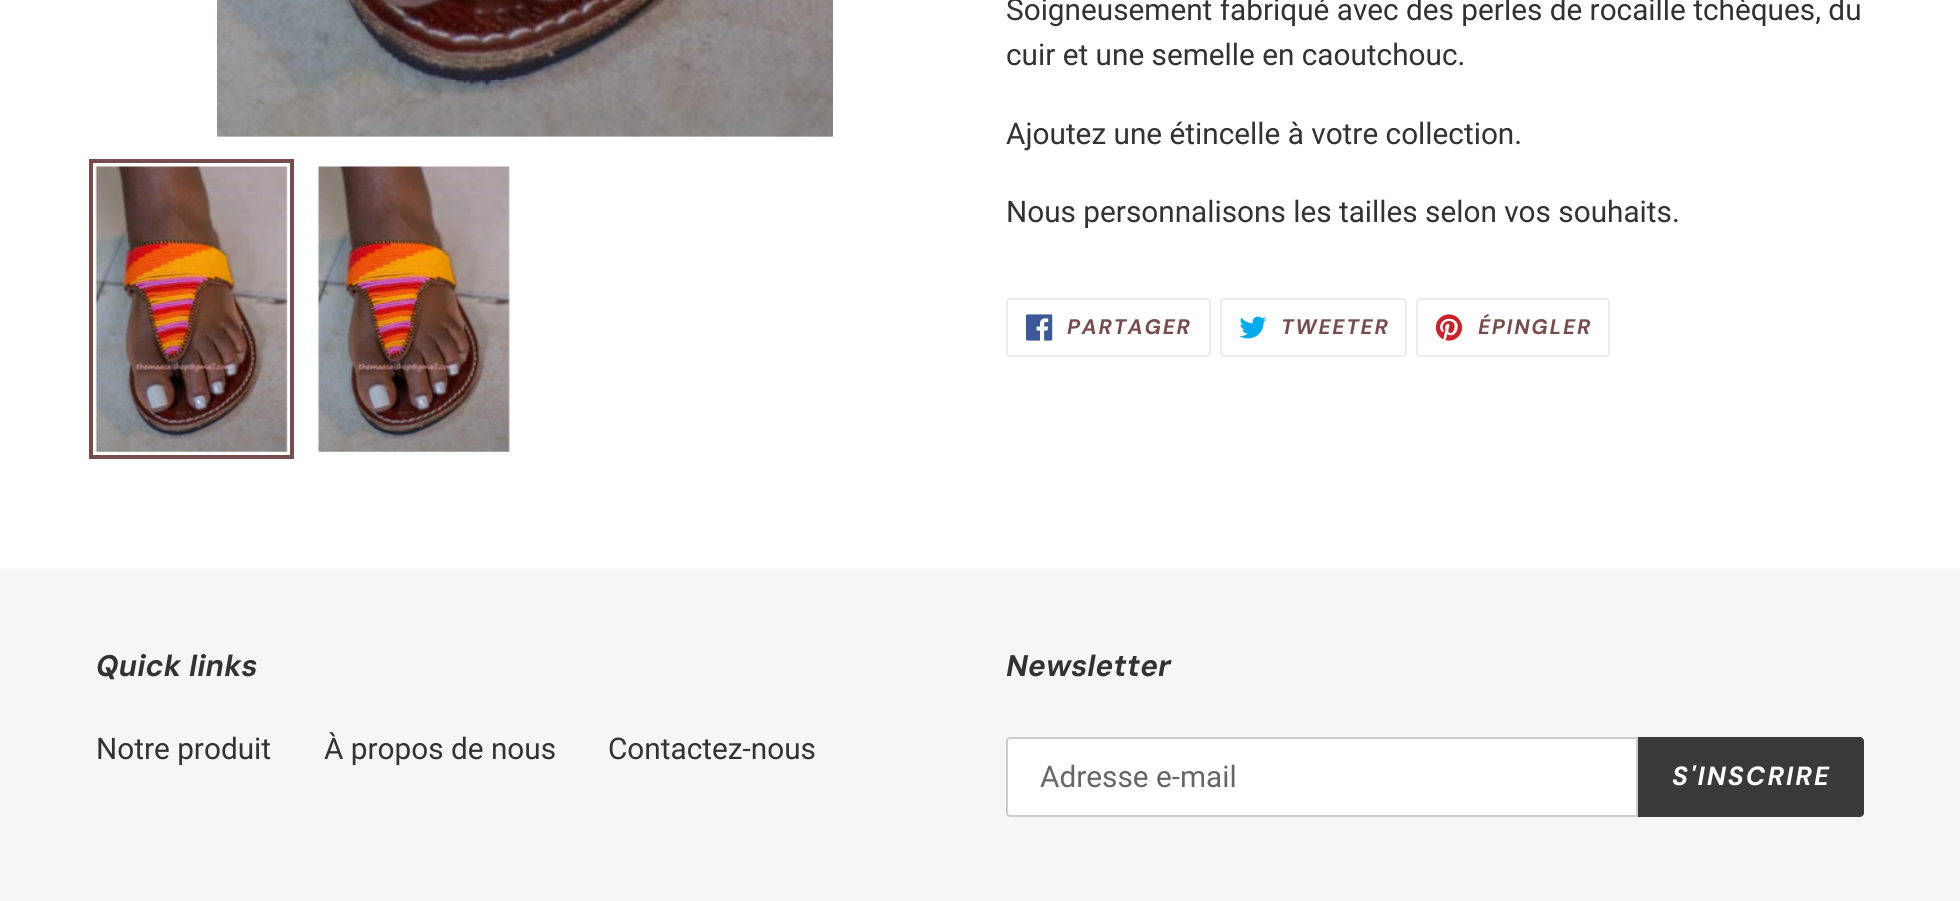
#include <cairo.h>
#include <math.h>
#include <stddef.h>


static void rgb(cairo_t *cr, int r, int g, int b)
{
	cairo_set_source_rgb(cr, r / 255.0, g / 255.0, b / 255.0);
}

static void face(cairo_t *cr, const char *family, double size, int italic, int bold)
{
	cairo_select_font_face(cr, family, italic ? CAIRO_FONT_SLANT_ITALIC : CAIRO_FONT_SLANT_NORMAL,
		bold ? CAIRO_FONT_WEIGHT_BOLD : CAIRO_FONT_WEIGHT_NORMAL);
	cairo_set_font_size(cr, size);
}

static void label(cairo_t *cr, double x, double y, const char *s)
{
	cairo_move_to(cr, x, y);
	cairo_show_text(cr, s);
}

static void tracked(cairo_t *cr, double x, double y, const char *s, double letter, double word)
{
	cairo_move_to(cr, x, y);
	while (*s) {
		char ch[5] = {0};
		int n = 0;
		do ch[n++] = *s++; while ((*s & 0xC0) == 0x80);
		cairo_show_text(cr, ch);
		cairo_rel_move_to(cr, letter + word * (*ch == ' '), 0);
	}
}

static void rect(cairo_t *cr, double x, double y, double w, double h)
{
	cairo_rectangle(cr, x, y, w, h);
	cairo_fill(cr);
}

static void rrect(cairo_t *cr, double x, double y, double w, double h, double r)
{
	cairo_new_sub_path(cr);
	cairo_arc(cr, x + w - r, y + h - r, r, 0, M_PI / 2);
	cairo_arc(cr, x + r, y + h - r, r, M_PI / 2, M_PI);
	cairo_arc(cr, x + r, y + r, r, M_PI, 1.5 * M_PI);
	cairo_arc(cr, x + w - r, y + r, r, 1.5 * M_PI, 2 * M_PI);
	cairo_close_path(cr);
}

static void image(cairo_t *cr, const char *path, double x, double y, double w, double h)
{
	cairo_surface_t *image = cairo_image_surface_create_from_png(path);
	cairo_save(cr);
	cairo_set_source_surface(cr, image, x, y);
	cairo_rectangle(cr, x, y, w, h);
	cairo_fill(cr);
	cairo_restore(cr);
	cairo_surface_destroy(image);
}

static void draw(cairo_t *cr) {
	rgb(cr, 255, 255, 255);
	cairo_paint(cr);
	image(cr, "image0.png", 217, 0, 616, 137);
	cairo_rectangle(cr, 91, 161, 201, 296);
	rgb(cr, 118, 76, 76);
	cairo_set_line_width(cr, 4);
	cairo_stroke(cr);
	image(cr, "image1.png", 95, 166, 193, 286);
	image(cr, "image2.png", 317, 166, 193, 286);
	face(cr, "Roboto", 29.75, 0, 0);
	rgb(cr, 51, 50, 50);
	label(cr, 1006, 20, "Soigneusement fabriqué avec des perles de rocaille tchèques, du");
	label(cr, 1006, 65, "cuir et une semelle en caoutchouc.");
	label(cr, 1006, 144, "Ajoutez une étincelle à votre collection.");
	label(cr, 1006, 222, "Nous personnalisons les tailles selon vos souhaits.");
	rrect(cr, 1007, 299, 203, 57, 3);
	rgb(cr, 235, 235, 235);
	cairo_set_line_width(cr, 2);
	cairo_stroke(cr);
	image(cr, "image3.png", 1026, 314, 27, 27);
	face(cr, "DM Sans", 21, 1, 1);
	rgb(cr, 118, 76, 76);
	tracked(cr, 1067, 334, "PARTAGER", 1.75, 0);
	rrect(cr, 1221, 299, 185, 57, 3);
	rgb(cr, 235, 235, 235);
	cairo_stroke(cr);
	image(cr, "image4.png", 1239, 316, 28, 23);
	rgb(cr, 118, 76, 76);
	tracked(cr, 1281, 334, "TWEETER", 1.75, 0);
	rrect(cr, 1417, 299, 192, 57, 3);
	rgb(cr, 235, 235, 235);
	cairo_stroke(cr);
	image(cr, "image5.png", 1435, 314, 28, 27);
	rgb(cr, 118, 76, 76);
	tracked(cr, 1478, 334, "ÉPINGLER", 1.75, 0);
	rgb(cr, 246, 246, 246);
	rect(cr, 0, 569, 1960, 332);
	face(cr, "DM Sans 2", 29.75, 1, 1);
	rgb(cr, 51, 50, 50);
	tracked(cr, 96, 676, "Quick links", 0, 1);
	face(cr, "Roboto", 29.75, 0, 0);
	label(cr, 96, 759, "Notre produit");
	label(cr, 324, 759, "À propos de nous");
	label(cr, 608, 759, "Contactez-nous");
	face(cr, "DM Sans 2", 29.75, 1, 1);
	label(cr, 1006, 676, "Newsletter");
	rgb(cr, 255, 255, 255);
	cairo_new_path(cr);
	cairo_move_to(cr, 1010, 738);
	cairo_line_to(cr, 1637, 738);
	cairo_line_to(cr, 1637, 816);
	cairo_line_to(cr, 1010, 816);
	cairo_curve_to(cr, 1008.5, 816, 1007, 814.5, 1007, 813);
	cairo_line_to(cr, 1007, 741);
	cairo_curve_to(cr, 1007, 739.5, 1008.5, 738, 1010, 738);
	cairo_close_path(cr);
	cairo_fill_preserve(cr);
	rgb(cr, 204, 204, 204);
	cairo_stroke(cr);
	face(cr, "Roboto", 29.75, 0, 0);
	rgb(cr, 102, 102, 102);
	label(cr, 1040, 787, "Adresse e-mail");
	rgb(cr, 58, 58, 58);
	cairo_new_path(cr);
	cairo_move_to(cr, 1638, 737);
	cairo_line_to(cr, 1860, 737);
	cairo_curve_to(cr, 1862, 737, 1864, 739, 1864, 741);
	cairo_line_to(cr, 1864, 813);
	cairo_curve_to(cr, 1864, 815, 1862, 817, 1860, 817);
	cairo_line_to(cr, 1638, 817);
	cairo_close_path(cr);
	cairo_fill(cr);
	face(cr, "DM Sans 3", 26.25, 1, 1);
	rgb(cr, 255, 255, 255);
	tracked(cr, 1672, 785, "S'INSCRIRE", 2.1, 0);
}

int main(void) {
	cairo_surface_t *surface = cairo_image_surface_create(CAIRO_FORMAT_RGB24, 1960, 901);
	cairo_t *cr = cairo_create(surface);
	cairo_font_options_t *options = cairo_font_options_create();
	cairo_font_options_set_hint_metrics(options, CAIRO_HINT_METRICS_OFF);
	cairo_font_options_set_hint_style(options, CAIRO_HINT_STYLE_NONE);
	cairo_set_font_options(cr, options);
	cairo_set_miter_limit(cr, 4);
	draw(cr);
	cairo_surface_write_to_png(surface, "render.png");
	cairo_font_options_destroy(options);
	cairo_destroy(cr);
	cairo_surface_destroy(surface);
	return 0;
}
